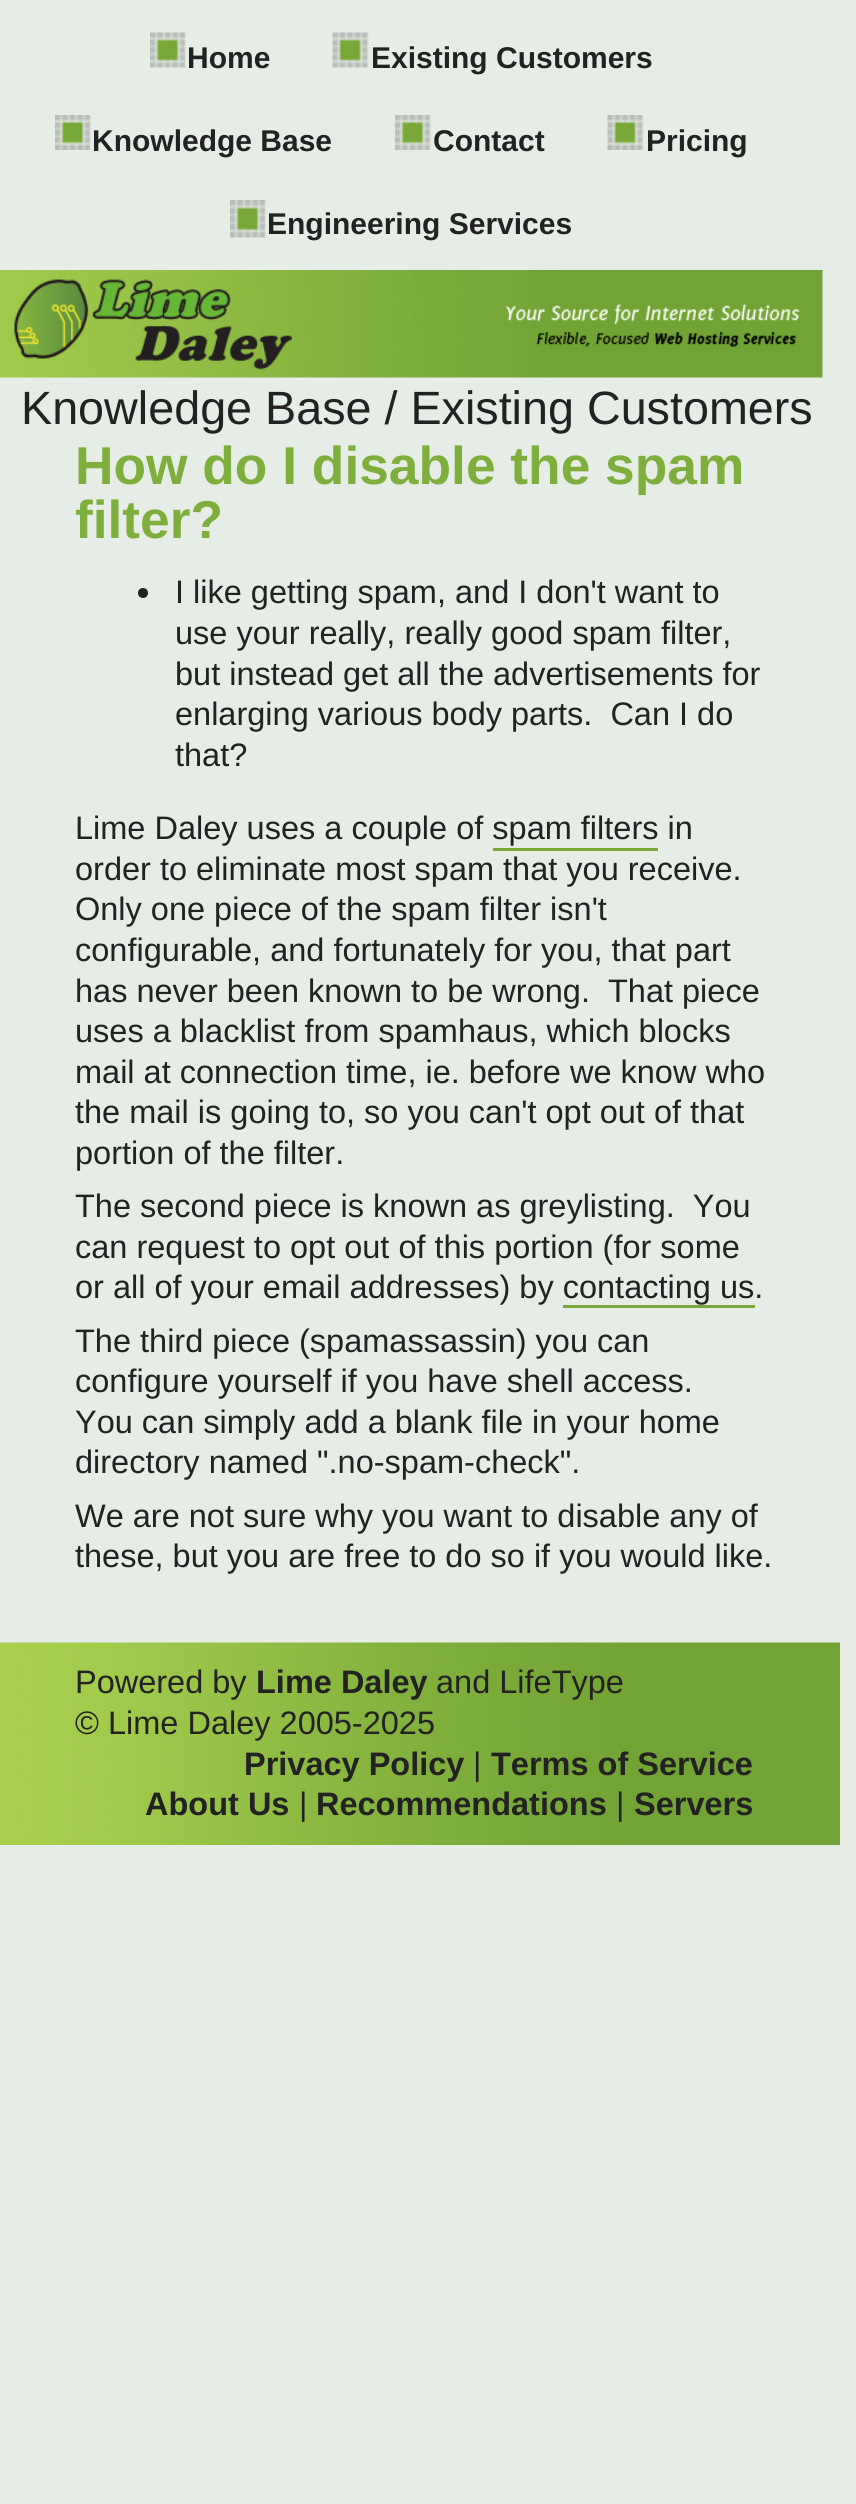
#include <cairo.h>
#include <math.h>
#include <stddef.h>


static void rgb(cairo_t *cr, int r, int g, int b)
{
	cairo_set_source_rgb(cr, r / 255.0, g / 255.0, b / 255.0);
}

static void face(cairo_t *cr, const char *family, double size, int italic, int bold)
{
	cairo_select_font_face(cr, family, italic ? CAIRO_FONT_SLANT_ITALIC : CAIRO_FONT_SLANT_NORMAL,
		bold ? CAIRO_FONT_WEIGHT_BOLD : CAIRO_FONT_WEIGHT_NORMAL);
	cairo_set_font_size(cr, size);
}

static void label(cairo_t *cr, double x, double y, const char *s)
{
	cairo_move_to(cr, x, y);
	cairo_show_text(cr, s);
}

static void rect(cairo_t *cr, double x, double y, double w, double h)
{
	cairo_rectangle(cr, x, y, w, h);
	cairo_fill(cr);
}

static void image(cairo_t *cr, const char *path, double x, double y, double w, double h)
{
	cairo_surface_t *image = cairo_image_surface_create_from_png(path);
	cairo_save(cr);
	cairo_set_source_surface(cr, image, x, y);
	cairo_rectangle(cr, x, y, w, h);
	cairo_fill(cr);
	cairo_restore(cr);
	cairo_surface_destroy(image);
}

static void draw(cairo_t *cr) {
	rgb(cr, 230, 237, 230);
	cairo_paint(cr);
	image(cr, "image0.png", 150, 32, 36, 36);
	face(cr, "Liberation Sans", 30, 0, 1);
	rgb(cr, 34, 34, 34);
	label(cr, 187, 68, "Home");
	image(cr, "image1.png", 332, 32, 37, 36);
	label(cr, 371, 68, "Existing Customers");
	image(cr, "image2.png", 55, 115, 36, 35);
	label(cr, 92, 151, "Knowledge Base");
	image(cr, "image2.png", 395, 115, 36, 35);
	label(cr, 433, 151, "Contact");
	image(cr, "image3.png", 607, 115, 37, 35);
	label(cr, 646, 151, "Pricing");
	image(cr, "image4.png", 230, 200, 36, 38);
	label(cr, 267, 234, "Engineering Services");
	image(cr, "image5.png", 0, 270, 823, 108);
	face(cr, "Liberation Sans", 46.7, 0, 0);
	label(cr, 21, 424, "Knowledge Base / Existing Customers");
	face(cr, "Liberation Sans", 53.3, 0, 1);
	rgb(cr, 126, 174, 59);
	label(cr, 75, 484, "How do I disable the spam");
	label(cr, 75, 538, "filter?");
	rgb(cr, 34, 34, 34);
	cairo_new_path(cr);
	cairo_arc(cr, 143, 593, 5, 0, 2 * M_PI);
	cairo_fill(cr);
	face(cr, "Liberation Sans", 32.5, 0, 0);
	label(cr, 175, 603, "I like getting spam, and I don't want to");
	label(cr, 175, 644, "use your really, really good spam filter,");
	label(cr, 175, 685, "but instead get all the advertisements for");
	label(cr, 175, 725, "enlarging various body parts.  Can I do");
	label(cr, 175, 766, "that?");
	label(cr, 75, 839, "Lime Daley uses a couple of spam filters in");
	rgb(cr, 120, 169, 56);
	rect(cr, 493, 848, 165, 3);
	rgb(cr, 34, 34, 34);
	label(cr, 75, 880, "order to eliminate most spam that you receive.");
	label(cr, 75, 920, "Only one piece of the spam filter isn't");
	label(cr, 75, 961, "configurable, and fortunately for you, that part");
	label(cr, 75, 1002, "has never been known to be wrong.  That piece");
	label(cr, 75, 1042, "uses a blacklist from spamhaus, which blocks");
	label(cr, 75, 1083, "mail at connection time, ie. before we know who");
	label(cr, 75, 1123, "the mail is going to, so you can't opt out of that");
	label(cr, 75, 1164, "portion of the filter.");
	label(cr, 75, 1217, "The second piece is known as greylisting.  You");
	label(cr, 75, 1258, "can request to opt out of this portion (for some");
	label(cr, 75, 1298, "or all of your email addresses) by contacting us.");
	rgb(cr, 120, 169, 56);
	rect(cr, 563, 1305, 192, 3);
	rgb(cr, 34, 34, 34);
	label(cr, 75, 1352, "The third piece (spamassassin) you can");
	label(cr, 75, 1392, "configure yourself if you have shell access.");
	label(cr, 75, 1433, "You can simply add a blank file in your home");
	label(cr, 75, 1473, "directory named \".no-spam-check\".");
	label(cr, 75, 1527, "We are not sure why you want to disable any of");
	label(cr, 75, 1567, "these, but you are free to do so if you would like.");
	image(cr, "image6.png", 0, 1642, 840, 203);
	label(cr, 75, 1693, "Powered by");
	face(cr, "Liberation Sans", 32.5, 0, 1);
	label(cr, 256, 1693, "Lime Daley");
	face(cr, "Liberation Sans", 32.5, 0, 0);
	label(cr, 436, 1693, "and LifeType");
	label(cr, 75, 1734, "© Lime Daley 2005-2025");
	face(cr, "Liberation Sans", 32.5, 0, 1);
	label(cr, 244, 1775, "Privacy Policy");
	face(cr, "Liberation Sans", 32.5, 0, 0);
	label(cr, 473, 1775, "|");
	face(cr, "Liberation Sans", 32.5, 0, 1);
	label(cr, 491, 1775, "Terms of Service");
	label(cr, 145, 1815, "About Us");
	face(cr, "Liberation Sans", 32.5, 0, 0);
	label(cr, 299, 1815, "|");
	face(cr, "Liberation Sans", 32.5, 0, 1);
	label(cr, 316, 1815, "Recommendations");
	face(cr, "Liberation Sans", 32.5, 0, 0);
	label(cr, 616, 1815, "|");
	face(cr, "Liberation Sans", 32.5, 0, 1);
	label(cr, 634, 1815, "Servers");
}

int main(void) {
	cairo_surface_t *surface = cairo_image_surface_create(CAIRO_FORMAT_RGB24, 856, 2504);
	cairo_t *cr = cairo_create(surface);
	cairo_font_options_t *options = cairo_font_options_create();
	cairo_font_options_set_hint_metrics(options, CAIRO_HINT_METRICS_OFF);
	cairo_font_options_set_hint_style(options, CAIRO_HINT_STYLE_NONE);
	cairo_set_font_options(cr, options);
	cairo_set_miter_limit(cr, 4);
	draw(cr);
	cairo_surface_write_to_png(surface, "render.png");
	cairo_font_options_destroy(options);
	cairo_destroy(cr);
	cairo_surface_destroy(surface);
	return 0;
}
